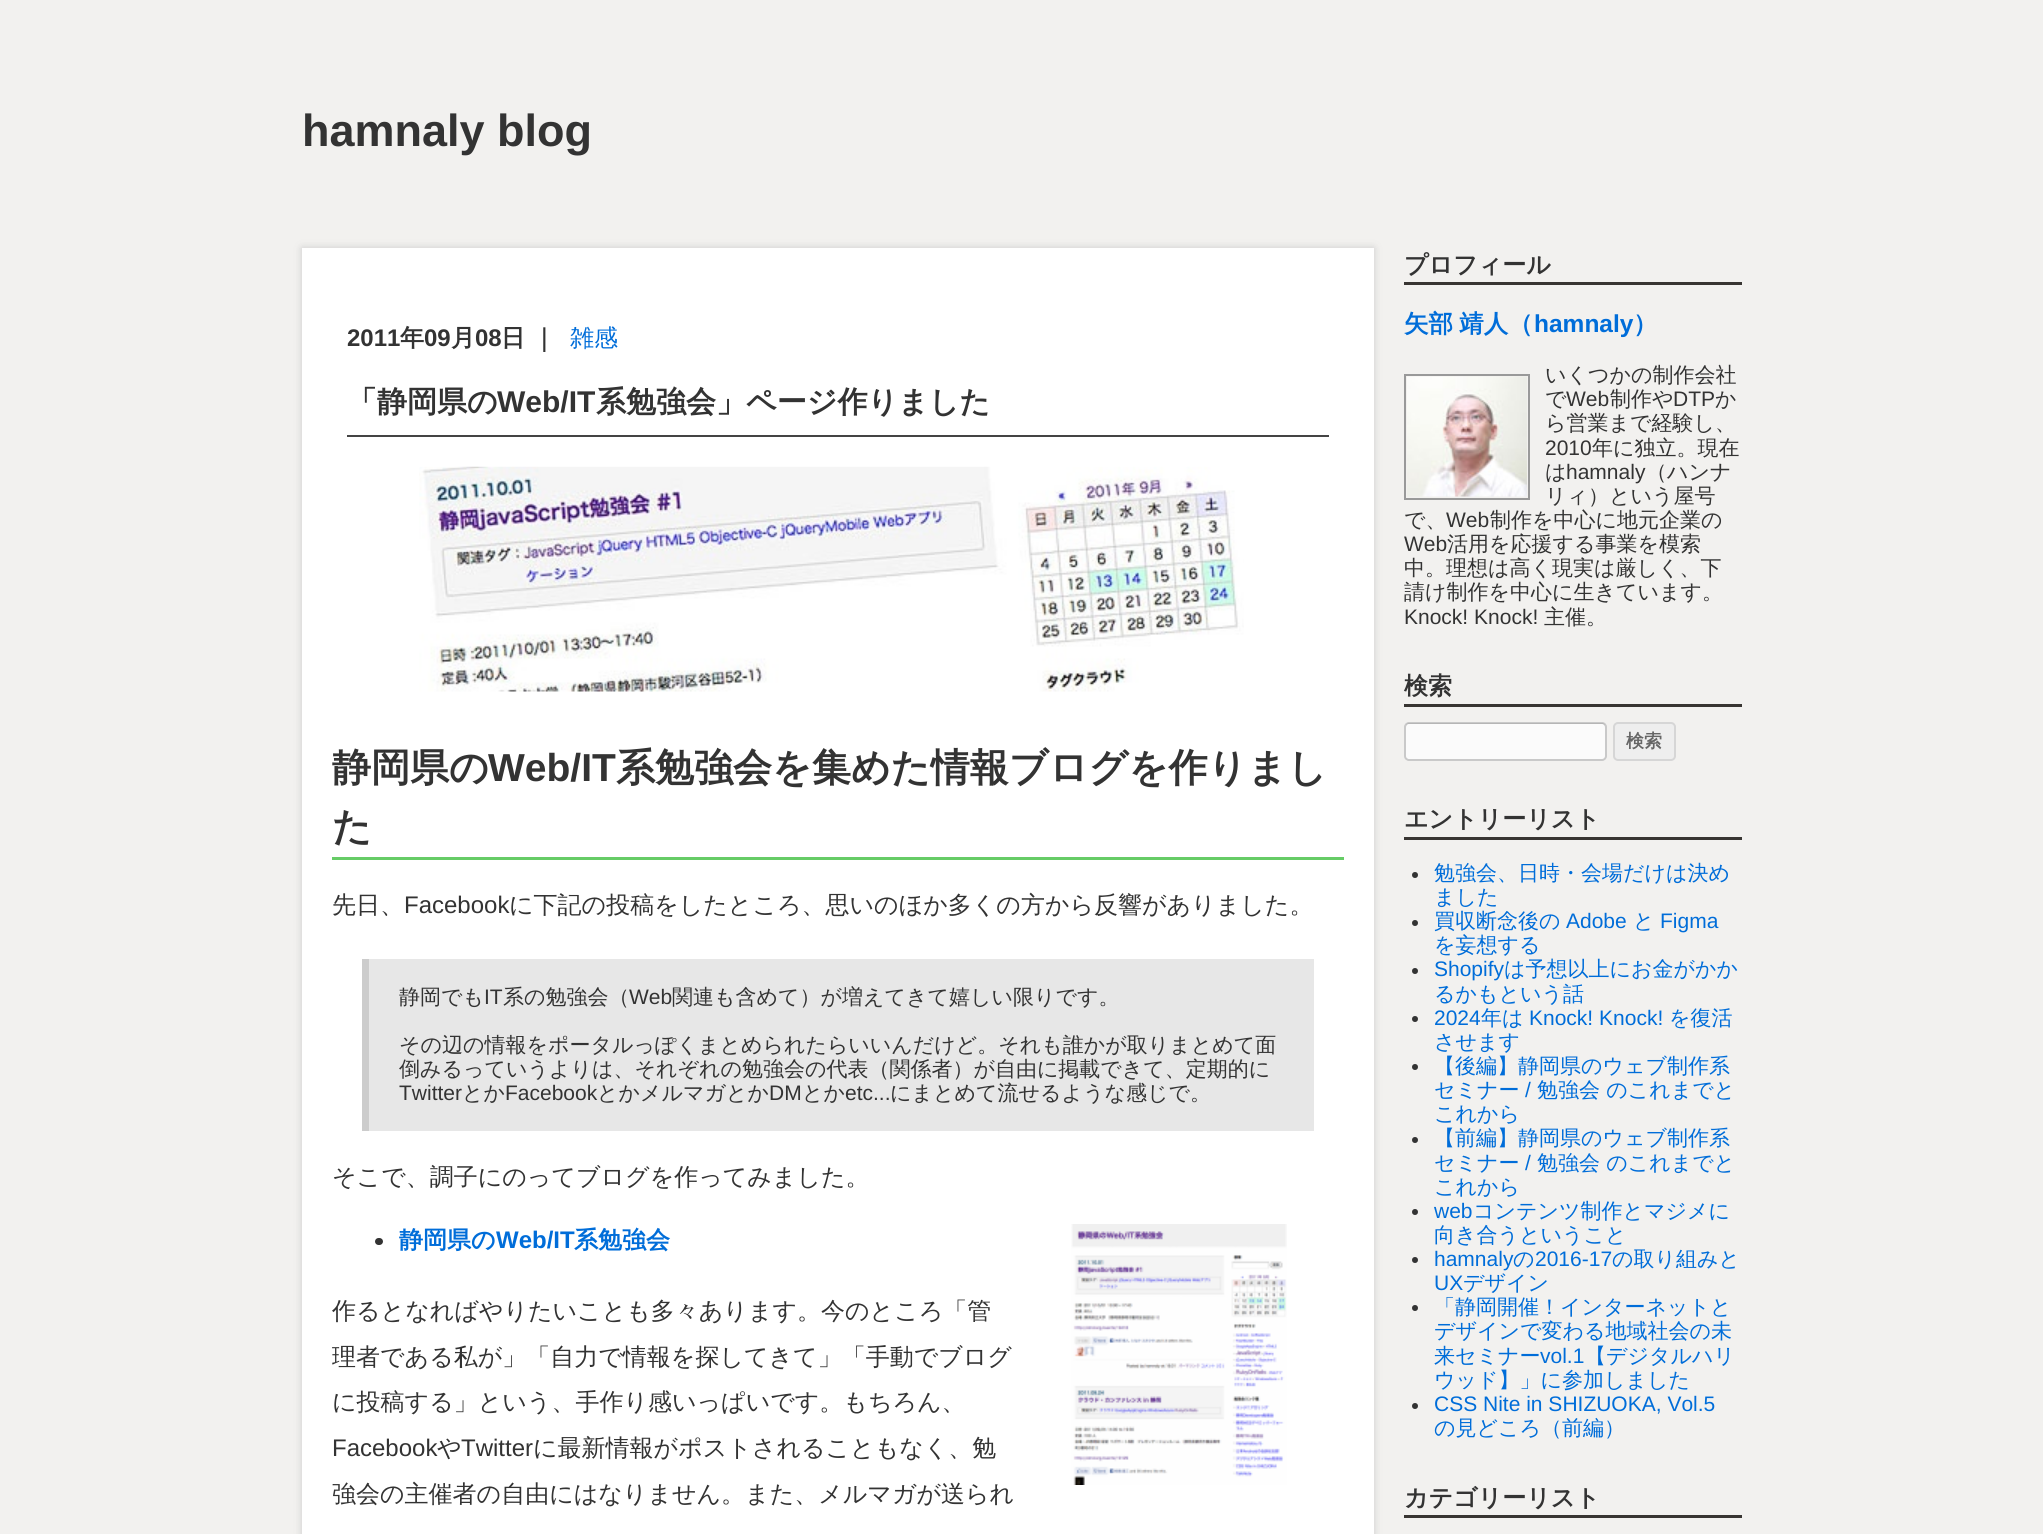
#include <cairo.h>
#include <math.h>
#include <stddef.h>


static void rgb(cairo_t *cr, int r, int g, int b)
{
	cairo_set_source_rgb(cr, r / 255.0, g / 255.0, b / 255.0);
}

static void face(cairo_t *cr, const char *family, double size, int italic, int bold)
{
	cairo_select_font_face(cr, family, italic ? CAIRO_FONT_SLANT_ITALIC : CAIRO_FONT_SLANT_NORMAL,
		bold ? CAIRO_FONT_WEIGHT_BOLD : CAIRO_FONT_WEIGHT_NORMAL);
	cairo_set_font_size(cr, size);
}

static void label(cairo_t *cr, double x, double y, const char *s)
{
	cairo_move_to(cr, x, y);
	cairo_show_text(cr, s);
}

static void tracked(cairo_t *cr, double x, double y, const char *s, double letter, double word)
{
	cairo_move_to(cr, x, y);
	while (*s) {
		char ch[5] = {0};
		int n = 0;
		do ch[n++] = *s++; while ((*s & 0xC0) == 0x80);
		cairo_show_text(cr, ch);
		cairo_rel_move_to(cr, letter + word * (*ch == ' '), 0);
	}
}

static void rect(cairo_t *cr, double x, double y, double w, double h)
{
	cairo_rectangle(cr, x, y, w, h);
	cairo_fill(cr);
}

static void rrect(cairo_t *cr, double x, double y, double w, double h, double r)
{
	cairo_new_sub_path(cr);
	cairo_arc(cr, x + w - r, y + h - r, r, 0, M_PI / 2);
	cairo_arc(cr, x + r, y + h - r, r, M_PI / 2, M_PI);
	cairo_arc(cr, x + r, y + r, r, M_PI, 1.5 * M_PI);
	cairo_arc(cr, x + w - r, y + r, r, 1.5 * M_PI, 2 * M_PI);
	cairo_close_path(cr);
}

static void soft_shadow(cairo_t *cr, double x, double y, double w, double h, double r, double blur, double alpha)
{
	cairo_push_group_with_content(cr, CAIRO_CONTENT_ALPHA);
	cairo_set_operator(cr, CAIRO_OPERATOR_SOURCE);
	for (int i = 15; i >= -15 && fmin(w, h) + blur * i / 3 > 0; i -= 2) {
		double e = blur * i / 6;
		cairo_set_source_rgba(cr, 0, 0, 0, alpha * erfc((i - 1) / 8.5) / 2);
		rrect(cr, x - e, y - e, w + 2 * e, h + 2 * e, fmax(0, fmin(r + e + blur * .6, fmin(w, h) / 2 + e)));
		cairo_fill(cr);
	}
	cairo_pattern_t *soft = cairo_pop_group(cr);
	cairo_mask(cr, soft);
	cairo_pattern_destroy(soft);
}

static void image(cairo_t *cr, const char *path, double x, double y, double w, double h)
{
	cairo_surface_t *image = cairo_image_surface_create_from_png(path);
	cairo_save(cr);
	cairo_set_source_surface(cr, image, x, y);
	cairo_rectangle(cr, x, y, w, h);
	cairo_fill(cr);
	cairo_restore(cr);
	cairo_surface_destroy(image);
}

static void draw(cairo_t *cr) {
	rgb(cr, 242, 241, 239);
	cairo_paint(cr);
	face(cr, "Liberation Sans", 45, 0, 1);
	rgb(cr, 51, 51, 51);
	label(cr, 302, 146, "hamnaly blog");
	rgb(cr, 204, 204, 204);
	soft_shadow(cr, 302, 248, 1072, 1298, 0, 4, 1);
	rgb(cr, 255, 255, 255);
	rect(cr, 302, 248, 1072, 1286);
	rgb(cr, 68, 68, 68);
	rect(cr, 347, 435, 982, 2);
	face(cr, "Liberation Sans", 24, 0, 1);
	rgb(cr, 51, 51, 51);
	label(cr, 347, 346, "2011");
	face(cr, "WenQuanYi Zen Hei", 24, 0, 1);
	label(cr, 400, 346, "年");
	face(cr, "Liberation Sans", 24, 0, 1);
	label(cr, 424, 346, "09");
	face(cr, "WenQuanYi Zen Hei", 24, 0, 1);
	label(cr, 451, 346, "月");
	face(cr, "Liberation Sans", 24, 0, 1);
	label(cr, 475, 346, "08");
	face(cr, "WenQuanYi Zen Hei", 24, 0, 1);
	label(cr, 501, 346, "日");
	label(cr, 532, 346, "｜");
	face(cr, "WenQuanYi Zen Hei Medium", 24, 0, 0);
	rgb(cr, 0, 109, 217);
	label(cr, 570, 346, "雑感");
	face(cr, "WenQuanYi Zen Hei", 30, 0, 1);
	rgb(cr, 51, 51, 51);
	label(cr, 347, 412, "「静岡県の");
	face(cr, "Liberation Sans", 30, 0, 1);
	label(cr, 497, 412, "Web/IT");
	face(cr, "WenQuanYi Zen Hei", 30, 0, 1);
	label(cr, 596, 412, "系勉強会」ページ作りました");
	image(cr, "image0.png", 419, 466, 825, 226);
	rgb(cr, 102, 204, 102);
	rect(cr, 332, 857, 1012, 3);
	face(cr, "WenQuanYi Zen Hei", 39, 0, 1);
	rgb(cr, 51, 51, 51);
	label(cr, 332, 781, "静岡県の");
	face(cr, "Liberation Sans", 39, 0, 1);
	label(cr, 488, 781, "Web/IT");
	face(cr, "WenQuanYi Zen Hei", 39, 0, 1);
	label(cr, 616, 781, "系勉強会を集めた情報ブログを作りまし");
	label(cr, 332, 840, "た");
	face(cr, "WenQuanYi Zen Hei Medium", 24, 0, 0);
	label(cr, 332, 913, "先日、");
	face(cr, "Liberation Sans", 24, 0, 0);
	label(cr, 404, 913, "Facebook");
	face(cr, "WenQuanYi Zen Hei Medium", 24, 0, 0);
	label(cr, 509, 913, "に下記の投稿をしたところ、思いのほか多くの方から反響がありました。");
	rgb(cr, 231, 231, 231);
	rect(cr, 369, 959, 945, 172);
	rgb(cr, 204, 204, 204);
	rect(cr, 362, 959, 7, 172);
	face(cr, "WenQuanYi Zen Hei Medium", 21, 0, 0);
	rgb(cr, 51, 51, 51);
	label(cr, 399, 1004, "静岡でも");
	face(cr, "Liberation Sans", 21, 0, 0);
	label(cr, 484, 1004, "IT");
	face(cr, "WenQuanYi Zen Hei Medium", 21, 0, 0);
	label(cr, 503, 1004, "系の勉強会（");
	face(cr, "Liberation Sans", 21, 0, 0);
	label(cr, 629, 1004, "Web");
	face(cr, "WenQuanYi Zen Hei Medium", 21, 0, 0);
	label(cr, 672, 1004, "関連も含めて）が増えてきて嬉しい限りです。");
	label(cr, 399, 1052, "その辺の情報をポータルっぽくまとめられたらいいんだけど。それも誰かが取りまとめて面");
	label(cr, 399, 1076, "倒みるっていうよりは、それぞれの勉強会の代表（関係者）が自由に掲載できて、定期的に");
	face(cr, "Liberation Sans", 21, 0, 0);
	label(cr, 399, 1100, "Twitter");
	face(cr, "WenQuanYi Zen Hei Medium", 21, 0, 0);
	label(cr, 462, 1100, "とか");
	face(cr, "Liberation Sans", 21, 0, 0);
	label(cr, 505, 1100, "Facebook");
	face(cr, "WenQuanYi Zen Hei Medium", 21, 0, 0);
	label(cr, 597, 1100, "とかメルマガとか");
	face(cr, "Liberation Sans", 21, 0, 0);
	label(cr, 769, 1100, "DM");
	face(cr, "WenQuanYi Zen Hei Medium", 21, 0, 0);
	label(cr, 802, 1100, "とか");
	face(cr, "Liberation Sans", 21, 0, 0);
	label(cr, 845, 1100, "etc...");
	face(cr, "WenQuanYi Zen Hei Medium", 21, 0, 0);
	label(cr, 890, 1100, "にまとめて流せるような感じで。");
	face(cr, "WenQuanYi Zen Hei Medium", 24, 0, 0);
	label(cr, 332, 1185, "そこで、調子にのってブログを作ってみました。");
	rrect(cr, 375, 1238, 8, 7, 3.5);
	cairo_fill(cr);
	face(cr, "WenQuanYi Zen Hei", 24, 0, 1);
	rgb(cr, 0, 109, 217);
	label(cr, 399, 1248, "静岡県の");
	face(cr, "Liberation Sans", 24, 0, 1);
	label(cr, 496, 1248, "Web/IT");
	face(cr, "WenQuanYi Zen Hei", 24, 0, 1);
	label(cr, 574, 1248, "系勉強会");
	image(cr, "image1.png", 1071, 1224, 216, 261);
	face(cr, "WenQuanYi Zen Hei Medium", 24, 0, 0);
	rgb(cr, 51, 51, 51);
	label(cr, 332, 1319, "作るとなればやりたいことも多々あります。今のところ「管");
	cairo_save(cr);
	cairo_rectangle(cr, 332, 467, 1012, 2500);
	cairo_clip(cr);
	label(cr, 332, 1365, "理者である私が」「自力で情報を探してきて」「手動でブログ");
	cairo_restore(cr);
	label(cr, 332, 1410, "に投稿する」という、手作り感いっぱいです。もちろん、");
	face(cr, "Liberation Sans", 24, 0, 0);
	label(cr, 332, 1456, "Facebook");
	face(cr, "WenQuanYi Zen Hei Medium", 24, 0, 0);
	label(cr, 437, 1456, "や");
	face(cr, "Liberation Sans", 24, 0, 0);
	label(cr, 461, 1456, "Twitter");
	face(cr, "WenQuanYi Zen Hei Medium", 24, 0, 0);
	label(cr, 533, 1456, "に最新情報がポストされることもなく、勉");
	label(cr, 332, 1502, "強会の主催者の自由にはなりません。また、メルマガが送られ");
	rgb(cr, 56, 53, 50);
	rect(cr, 1404, 282, 338, 3);
	face(cr, "WenQuanYi Zen Hei", 24, 0, 1);
	rgb(cr, 51, 51, 51);
	label(cr, 1404, 273, "プロフィール");
	face(cr, "WenQuanYi Zen Hei", 24.5, 0, 1);
	rgb(cr, 0, 109, 217);
	tracked(cr, 1404, 332, "矢部 靖人（", 0, -1);
	face(cr, "Liberation Sans", 24.5, 0, 1);
	label(cr, 1534, 332, "hamnaly");
	face(cr, "WenQuanYi Zen Hei", 24.5, 0, 1);
	label(cr, 1633, 332, "）");
	face(cr, "WenQuanYi Zen Hei Medium", 21, 0, 0);
	rgb(cr, 51, 51, 51);
	label(cr, 1545, 382, "いくつかの制作会社");
	label(cr, 1545, 406, "で");
	face(cr, "Liberation Sans", 21, 0, 0);
	label(cr, 1566, 406, "Web");
	face(cr, "WenQuanYi Zen Hei Medium", 21, 0, 0);
	label(cr, 1610, 406, "制作や");
	face(cr, "Liberation Sans", 21, 0, 0);
	label(cr, 1673, 406, "DTP");
	face(cr, "WenQuanYi Zen Hei Medium", 21, 0, 0);
	label(cr, 1715, 406, "か");
	label(cr, 1545, 430, "ら営業まで経験し、");
	face(cr, "Liberation Sans", 21, 0, 0);
	label(cr, 1545, 455, "2010");
	face(cr, "WenQuanYi Zen Hei Medium", 21, 0, 0);
	label(cr, 1592, 455, "年に独立。現在");
	label(cr, 1545, 479, "は");
	face(cr, "Liberation Sans", 21, 0, 0);
	label(cr, 1566, 479, "hamnaly");
	face(cr, "WenQuanYi Zen Hei Medium", 21, 0, 0);
	label(cr, 1646, 479, "（ハンナ");
	label(cr, 1545, 503, "リィ）という屋号");
	label(cr, 1404, 527, "で、");
	face(cr, "Liberation Sans", 21, 0, 0);
	label(cr, 1446, 527, "Web");
	face(cr, "WenQuanYi Zen Hei Medium", 21, 0, 0);
	label(cr, 1490, 527, "制作を中心に地元企業の");
	face(cr, "Liberation Sans", 21, 0, 0);
	label(cr, 1404, 551, "Web");
	face(cr, "WenQuanYi Zen Hei Medium", 21, 0, 0);
	label(cr, 1447, 551, "活用を応援する事業を模索");
	label(cr, 1404, 575, "中。理想は高く現実は厳しく、下");
	label(cr, 1404, 599, "請け制作を中心に生きています。");
	face(cr, "Liberation Sans", 21, 0, 0);
	label(cr, 1404, 624, "Knock! Knock!");
	face(cr, "WenQuanYi Zen Hei Medium", 21, 0, 0);
	label(cr, 1544, 624, "主催。");
	cairo_rectangle(cr, 1405, 375, 124, 124);
	rgb(cr, 153, 153, 153);
	cairo_stroke(cr);
	image(cr, "image2.png", 1407, 376, 120, 121);
	rgb(cr, 56, 53, 50);
	rect(cr, 1404, 704, 338, 3);
	face(cr, "WenQuanYi Zen Hei", 24, 0, 1);
	rgb(cr, 51, 51, 51);
	label(cr, 1404, 694, "検索");
	rgb(cr, 251, 251, 251);
	rrect(cr, 1404, 722, 203, 39, 5);
	cairo_fill(cr);
	rgb(cr, 226, 226, 226);
	cairo_new_path(cr);
	cairo_move_to(cr, 1408, 724);
	cairo_line_to(cr, 1602, 724);
	cairo_curve_to(cr, 1604, 724, 1605, 726, 1605, 728);
	cairo_curve_to(cr, 1605, 726, 1605, 724, 1603, 723);
	cairo_line_to(cr, 1408, 723);
	cairo_curve_to(cr, 1406, 724, 1406, 726, 1406, 728);
	cairo_curve_to(cr, 1406, 726, 1407, 724, 1408, 724);
	cairo_close_path(cr);
	cairo_fill(cr);
	rrect(cr, 1405, 723, 201, 37, 4);
	cairo_set_source_rgba(cr, 0, 0, 0, 0.2);
	cairo_stroke(cr);
	rgb(cr, 238, 238, 238);
	rrect(cr, 1614, 723, 61, 37, 4);
	cairo_fill_preserve(cr);
	rgb(cr, 214, 214, 214);
	cairo_stroke(cr);
	face(cr, "WenQuanYi Zen Hei", 18, 0, 1);
	rgb(cr, 102, 102, 102);
	label(cr, 1626, 747, "検索");
	rgb(cr, 56, 53, 50);
	rect(cr, 1404, 837, 338, 3);
	face(cr, "WenQuanYi Zen Hei", 24, 0, 1);
	rgb(cr, 51, 51, 51);
	label(cr, 1404, 827, "エントリーリスト");
	cairo_new_path(cr);
	cairo_arc(cr, 1415, 875, 3, 0, 2 * M_PI);
	cairo_fill(cr);
	face(cr, "WenQuanYi Zen Hei Medium", 21, 0, 0);
	rgb(cr, 0, 109, 217);
	label(cr, 1434, 880, "勉強会、日時・会場だけは決め");
	label(cr, 1434, 904, "ました");
	rgb(cr, 51, 51, 51);
	cairo_new_path(cr);
	cairo_arc(cr, 1415, 923, 3, 0, 2 * M_PI);
	cairo_fill(cr);
	rgb(cr, 0, 109, 217);
	label(cr, 1434, 928, "買収断念後の");
	face(cr, "Liberation Sans", 21, 0, 0);
	label(cr, 1566, 928, "Adobe");
	face(cr, "WenQuanYi Zen Hei Medium", 21, 0, 0);
	label(cr, 1633, 928, "と");
	face(cr, "Liberation Sans", 21, 0, 0);
	label(cr, 1660, 928, "Figma");
	face(cr, "WenQuanYi Zen Hei Medium", 21, 0, 0);
	label(cr, 1434, 952, "を妄想する");
	rgb(cr, 51, 51, 51);
	cairo_new_path(cr);
	cairo_arc(cr, 1415, 971, 3, 0, 2 * M_PI);
	cairo_fill(cr);
	face(cr, "Liberation Sans", 21, 0, 0);
	rgb(cr, 0, 109, 217);
	label(cr, 1434, 976, "Shopify");
	face(cr, "WenQuanYi Zen Hei Medium", 21, 0, 0);
	label(cr, 1504, 976, "は予想以上にお金がかか");
	label(cr, 1434, 1001, "るかもという話");
	rgb(cr, 51, 51, 51);
	cairo_new_path(cr);
	cairo_arc(cr, 1415, 1019, 3, 0, 2 * M_PI);
	cairo_fill(cr);
	face(cr, "Liberation Sans", 21, 0, 0);
	rgb(cr, 0, 109, 217);
	label(cr, 1434, 1025, "2024");
	face(cr, "WenQuanYi Zen Hei Medium", 21, 0, 0);
	label(cr, 1481, 1025, "年は");
	face(cr, "Liberation Sans", 21, 0, 0);
	label(cr, 1529, 1025, "Knock! Knock!");
	face(cr, "WenQuanYi Zen Hei Medium", 21, 0, 0);
	label(cr, 1669, 1025, "を復活");
	label(cr, 1434, 1049, "させます");
	rgb(cr, 51, 51, 51);
	cairo_new_path(cr);
	cairo_arc(cr, 1415, 1067, 3, 0, 2 * M_PI);
	cairo_fill(cr);
	rgb(cr, 0, 109, 217);
	label(cr, 1434, 1073, "【後編】静岡県のウェブ制作系");
	label(cr, 1434, 1097, "セミナー");
	face(cr, "Liberation Sans", 21, 0, 0);
	label(cr, 1525, 1097, "/");
	face(cr, "WenQuanYi Zen Hei Medium", 21, 0, 0);
	label(cr, 1537, 1097, "勉強会 のこれまでと");
	label(cr, 1434, 1121, "これから");
	rgb(cr, 51, 51, 51);
	cairo_new_path(cr);
	cairo_arc(cr, 1415, 1140, 3, 0, 2 * M_PI);
	cairo_fill(cr);
	rgb(cr, 0, 109, 217);
	label(cr, 1434, 1145, "【前編】静岡県のウェブ制作系");
	label(cr, 1434, 1170, "セミナー");
	face(cr, "Liberation Sans", 21, 0, 0);
	label(cr, 1525, 1170, "/");
	face(cr, "WenQuanYi Zen Hei Medium", 21, 0, 0);
	label(cr, 1537, 1170, "勉強会 のこれまでと");
	label(cr, 1434, 1194, "これから");
	rgb(cr, 51, 51, 51);
	cairo_new_path(cr);
	cairo_arc(cr, 1415, 1212, 3, 0, 2 * M_PI);
	cairo_fill(cr);
	face(cr, "Liberation Sans", 21, 0, 0);
	rgb(cr, 0, 109, 217);
	label(cr, 1434, 1218, "web");
	face(cr, "WenQuanYi Zen Hei Medium", 21, 0, 0);
	label(cr, 1473, 1218, "コンテンツ制作とマジメに");
	label(cr, 1434, 1242, "向き合うということ");
	rgb(cr, 51, 51, 51);
	cairo_new_path(cr);
	cairo_arc(cr, 1415, 1260, 3, 0, 2 * M_PI);
	cairo_fill(cr);
	face(cr, "Liberation Sans", 21, 0, 0);
	rgb(cr, 0, 109, 217);
	label(cr, 1434, 1266, "hamnaly");
	face(cr, "WenQuanYi Zen Hei Medium", 21, 0, 0);
	label(cr, 1513, 1266, "の");
	face(cr, "Liberation Sans", 21, 0, 0);
	label(cr, 1535, 1266, "2016-17");
	face(cr, "WenQuanYi Zen Hei Medium", 21, 0, 0);
	label(cr, 1612, 1266, "の取り組みと");
	face(cr, "Liberation Sans", 21, 0, 0);
	label(cr, 1434, 1290, "UX");
	face(cr, "WenQuanYi Zen Hei Medium", 21, 0, 0);
	label(cr, 1463, 1290, "デザイン");
	rgb(cr, 51, 51, 51);
	cairo_new_path(cr);
	cairo_arc(cr, 1415, 1308, 3, 0, 2 * M_PI);
	cairo_fill(cr);
	rgb(cr, 0, 109, 217);
	label(cr, 1434, 1314, "「静岡開催！インターネットと");
	label(cr, 1434, 1338, "デザインで変わる地域社会の未");
	label(cr, 1434, 1363, "来セミナー");
	face(cr, "Liberation Sans", 21, 0, 0);
	label(cr, 1540, 1363, "vol.1");
	face(cr, "WenQuanYi Zen Hei Medium", 21, 0, 0);
	label(cr, 1585, 1363, "【デジタルハリ");
	label(cr, 1434, 1387, "ウッド】」に参加しました");
	rgb(cr, 51, 51, 51);
	cairo_new_path(cr);
	cairo_arc(cr, 1415, 1406, 3, 0, 2 * M_PI);
	cairo_fill(cr);
	face(cr, "Liberation Sans", 21, 0, 0);
	rgb(cr, 0, 109, 217);
	label(cr, 1434, 1411, "CSS Nite in SHIZUOKA, Vol.5");
	face(cr, "WenQuanYi Zen Hei Medium", 21, 0, 0);
	label(cr, 1434, 1435, "の見どころ（前編）");
	rgb(cr, 56, 53, 50);
	rect(cr, 1404, 1515, 338, 3);
	face(cr, "WenQuanYi Zen Hei", 24, 0, 1);
	rgb(cr, 51, 51, 51);
	label(cr, 1404, 1506, "カテゴリーリスト");
}

int main(void) {
	cairo_surface_t *surface = cairo_image_surface_create(CAIRO_FORMAT_RGB24, 2043, 1534);
	cairo_t *cr = cairo_create(surface);
	cairo_font_options_t *options = cairo_font_options_create();
	cairo_font_options_set_hint_metrics(options, CAIRO_HINT_METRICS_OFF);
	cairo_font_options_set_hint_style(options, CAIRO_HINT_STYLE_NONE);
	cairo_set_font_options(cr, options);
	cairo_set_miter_limit(cr, 4);
	draw(cr);
	cairo_surface_write_to_png(surface, "render.png");
	cairo_font_options_destroy(options);
	cairo_destroy(cr);
	cairo_surface_destroy(surface);
	return 0;
}
